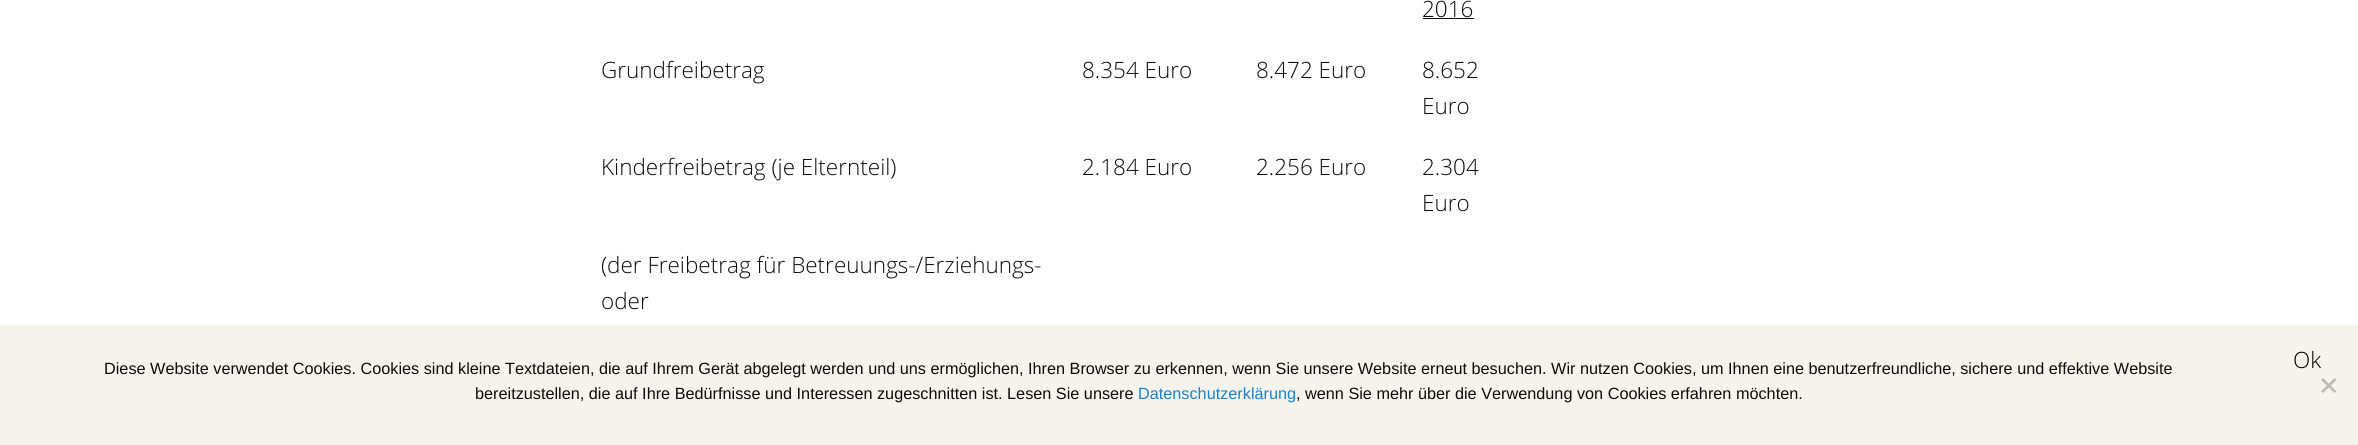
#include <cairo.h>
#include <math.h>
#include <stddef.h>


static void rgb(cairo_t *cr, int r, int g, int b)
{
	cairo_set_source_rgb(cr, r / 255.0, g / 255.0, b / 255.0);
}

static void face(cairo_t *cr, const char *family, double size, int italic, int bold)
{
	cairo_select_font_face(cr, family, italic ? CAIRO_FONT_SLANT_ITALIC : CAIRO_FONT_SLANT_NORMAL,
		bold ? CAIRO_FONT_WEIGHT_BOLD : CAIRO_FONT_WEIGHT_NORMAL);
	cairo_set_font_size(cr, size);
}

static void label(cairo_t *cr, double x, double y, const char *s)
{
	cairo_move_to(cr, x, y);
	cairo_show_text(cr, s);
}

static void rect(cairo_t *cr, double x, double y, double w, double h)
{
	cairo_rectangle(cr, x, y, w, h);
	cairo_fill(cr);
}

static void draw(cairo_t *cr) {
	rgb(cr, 255, 255, 255);
	cairo_paint(cr);
	face(cr, "Open Sans Light", 22.5, 0, 0);
	rgb(cr, 12, 12, 13);
	label(cr, 1422, 17, "2016");
	rect(cr, 1423, 18, 51, 1);
	label(cr, 601, 78, "Grundfreibetrag");
	label(cr, 1082, 78, "8.354 Euro");
	label(cr, 1256, 78, "8.472 Euro");
	label(cr, 1422, 78, "8.652");
	label(cr, 1422, 114, "Euro");
	label(cr, 601, 175, "Kinderfreibetrag (je Elternteil)");
	label(cr, 1082, 175, "2.184 Euro");
	label(cr, 1256, 175, "2.256 Euro");
	label(cr, 1422, 175, "2.304");
	label(cr, 1422, 211, "Euro");
	label(cr, 601, 273, "(der Freibetrag für Betreuungs-/Erziehungs-");
	label(cr, 601, 309, "oder");
	rgb(cr, 245, 243, 235);
	rect(cr, 0, 325, 2358, 120);
	rgb(cr, 0, 0, 0);
	label(cr, 2293, 368, "Ok");
	face(cr, "Liberation Sans", 16.25, 0, 0);
	rgb(cr, 12, 12, 13);
	label(cr, 104, 374, "Diese Website verwendet Cookies. Cookies sind kleine Textdateien, die auf Ihrem Gerät abgelegt werden und uns ermöglichen, Ihren Browser zu erkennen, wenn Sie unsere Website erneut besuchen. Wir nutzen Cookies, um Ihnen eine benutzerfreundliche, sichere und effektive Website");
	label(cr, 475, 399, "bereitzustellen, die auf Ihre Bedürfnisse und Interessen zugeschnitten ist. Lesen Sie unsere");
	rgb(cr, 22, 132, 205);
	label(cr, 1138, 399, "Datenschutzerklärung");
	rgb(cr, 12, 12, 13);
	label(cr, 1296, 399, ", wenn Sie mehr über die Verwendung von Cookies erfahren möchten.");
	rgb(cr, 187, 186, 182);
	cairo_new_path(cr);
	cairo_move_to(cr, 2334.5, 378);
	cairo_line_to(cr, 2336.5, 380);
	cairo_line_to(cr, 2323, 393);
	cairo_line_to(cr, 2321, 391.5);
	cairo_close_path(cr);
	cairo_fill(cr);
	cairo_new_path(cr);
	cairo_move_to(cr, 2321, 380);
	cairo_line_to(cr, 2323, 378);
	cairo_line_to(cr, 2336.5, 391.5);
	cairo_line_to(cr, 2334.5, 393);
	cairo_close_path(cr);
	cairo_fill(cr);
}

int main(void) {
	cairo_surface_t *surface = cairo_image_surface_create(CAIRO_FORMAT_RGB24, 2358, 445);
	cairo_t *cr = cairo_create(surface);
	cairo_font_options_t *options = cairo_font_options_create();
	cairo_font_options_set_hint_metrics(options, CAIRO_HINT_METRICS_OFF);
	cairo_font_options_set_hint_style(options, CAIRO_HINT_STYLE_NONE);
	cairo_set_font_options(cr, options);
	cairo_set_miter_limit(cr, 4);
	draw(cr);
	cairo_surface_write_to_png(surface, "render.png");
	cairo_font_options_destroy(options);
	cairo_destroy(cr);
	cairo_surface_destroy(surface);
	return 0;
}
